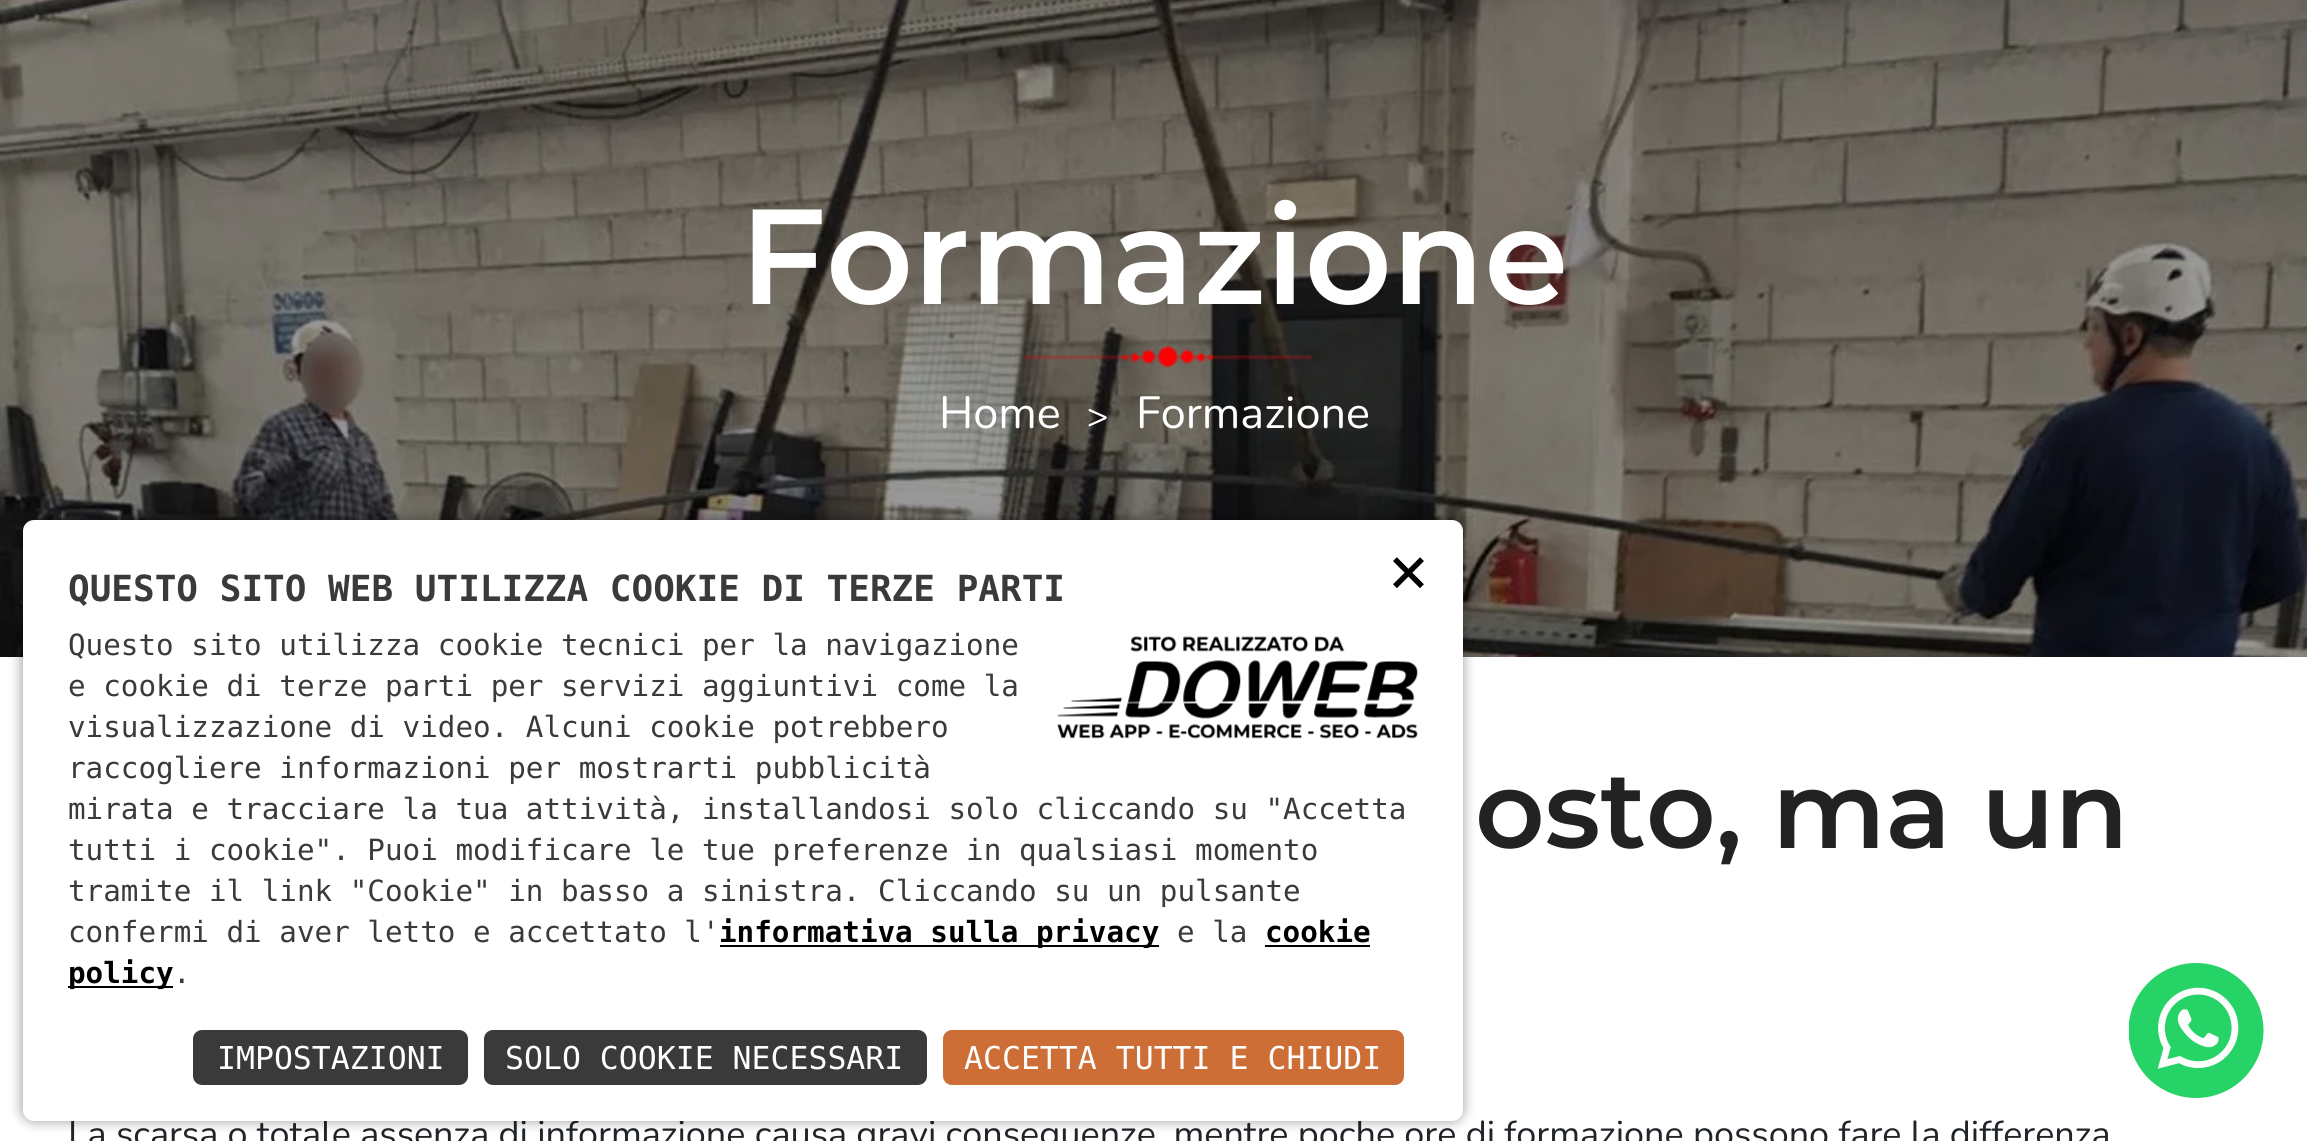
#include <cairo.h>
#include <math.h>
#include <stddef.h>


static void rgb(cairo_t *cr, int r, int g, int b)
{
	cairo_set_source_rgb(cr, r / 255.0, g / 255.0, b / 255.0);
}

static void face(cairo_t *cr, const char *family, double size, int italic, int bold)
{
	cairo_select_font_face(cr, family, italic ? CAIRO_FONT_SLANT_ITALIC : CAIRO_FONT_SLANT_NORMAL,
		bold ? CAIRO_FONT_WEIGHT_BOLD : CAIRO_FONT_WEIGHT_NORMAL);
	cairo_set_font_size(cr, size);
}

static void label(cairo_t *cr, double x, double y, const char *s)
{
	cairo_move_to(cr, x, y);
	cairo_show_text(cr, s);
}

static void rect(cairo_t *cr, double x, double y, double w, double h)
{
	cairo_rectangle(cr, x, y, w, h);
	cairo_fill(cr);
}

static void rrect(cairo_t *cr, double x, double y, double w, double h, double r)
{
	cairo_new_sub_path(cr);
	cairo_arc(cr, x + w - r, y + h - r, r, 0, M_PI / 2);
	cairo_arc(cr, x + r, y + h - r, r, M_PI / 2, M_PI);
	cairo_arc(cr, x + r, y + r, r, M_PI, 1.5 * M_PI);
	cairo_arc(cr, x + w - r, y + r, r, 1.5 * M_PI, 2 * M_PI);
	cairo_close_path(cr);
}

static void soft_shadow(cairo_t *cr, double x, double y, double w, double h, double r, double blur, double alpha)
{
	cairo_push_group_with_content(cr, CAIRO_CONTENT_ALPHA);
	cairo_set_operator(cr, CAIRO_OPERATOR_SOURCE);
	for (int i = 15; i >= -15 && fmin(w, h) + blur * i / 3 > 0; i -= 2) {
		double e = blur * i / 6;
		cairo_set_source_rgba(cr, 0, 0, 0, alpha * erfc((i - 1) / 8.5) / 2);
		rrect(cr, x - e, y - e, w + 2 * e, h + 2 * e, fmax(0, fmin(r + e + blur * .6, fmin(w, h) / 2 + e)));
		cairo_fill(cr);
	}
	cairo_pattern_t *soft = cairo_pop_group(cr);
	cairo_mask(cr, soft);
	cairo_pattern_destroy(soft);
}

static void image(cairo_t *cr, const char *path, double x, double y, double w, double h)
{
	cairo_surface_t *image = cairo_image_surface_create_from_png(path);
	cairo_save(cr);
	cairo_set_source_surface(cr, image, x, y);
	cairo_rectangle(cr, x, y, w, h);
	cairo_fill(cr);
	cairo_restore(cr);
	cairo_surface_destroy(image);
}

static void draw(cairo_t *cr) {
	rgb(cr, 255, 255, 255);
	cairo_paint(cr);
	image(cr, "image0.png", 0, 0, 2307, 657);
	face(cr, "Montserrat SemiBold", 135, 0, 0);
	rgb(cr, 255, 255, 255);
	label(cr, 740, 304, "Formazione");
	image(cr, "image1.png", 1023, 346, 289, 21);
	face(cr, "Nunito", 45, 0, 0);
	label(cr, 939, 428, "Home");
	face(cr, "Nunito", 36, 0, 0);
	label(cr, 1087, 428, ">");
	face(cr, "Nunito", 45, 0, 0);
	label(cr, 1136, 428, "Formazione");
	face(cr, "Montserrat SemiBold", 108, 0, 0);
	rgb(cr, 34, 34, 34);
	label(cr, 1475, 848, "osto, ma un");
	face(cr, "Nunito", 36, 0, 0);
	rgb(cr, 33, 37, 41);
	label(cr, 68, 1146, "La scarsa o totale assenza di informazione causa gravi conseguenze, mentre poche ore di formazione possono fare la differenza");
	image(cr, "image2.png", 2129, 963, 135, 135);
	rgb(cr, 0, 0, 0);
	soft_shadow(cr, 20, 518, 1445, 605, 14, 5.5, 0.3);
	rgb(cr, 255, 255, 255);
	rrect(cr, 23, 520, 1440, 601, 11);
	cairo_fill(cr);
	face(cr, "DejaVu Sans Mono", 36, 0, 1);
	rgb(cr, 58, 58, 59);
	label(cr, 68, 601, "QUESTO SITO WEB UTILIZZA COOKIE DI TERZE PARTI");
	face(cr, "DejaVu Sans Mono", 68, 0, 0);
	rgb(cr, 0, 0, 0);
	label(cr, 1388, 594, "×");
	face(cr, "DejaVu Sans Mono", 29.25, 0, 0);
	rgb(cr, 58, 58, 59);
	label(cr, 68, 655, "Questo sito utilizza cookie tecnici per la navigazione");
	image(cr, "image3.png", 1057, 636, 361, 103);
	label(cr, 68, 696, "e cookie di terze parti per servizi aggiuntivi come la");
	label(cr, 68, 737, "visualizzazione di video. Alcuni cookie potrebbero");
	label(cr, 68, 778, "raccogliere informazioni per mostrarti pubblicità");
	label(cr, 68, 819, "mirata e tracciare la tua attività, installandosi solo cliccando su \"Accetta");
	label(cr, 68, 860, "tutti i cookie\". Puoi modificare le tue preferenze in qualsiasi momento");
	label(cr, 68, 901, "tramite il link \"Cookie\" in basso a sinistra. Cliccando su un pulsante");
	label(cr, 68, 942, "confermi di aver letto e accettato l'");
	rgb(cr, 0, 0, 0);
	rect(cr, 720, 945, 439, 2);
	face(cr, "DejaVu Sans Mono", 29.25, 0, 1);
	label(cr, 719, 942, "informativa sulla privacy");
	face(cr, "DejaVu Sans Mono", 29.25, 0, 0);
	rgb(cr, 58, 58, 59);
	label(cr, 1177, 942, "e la");
	face(cr, "DejaVu Sans Mono", 29.25, 0, 1);
	rgb(cr, 0, 0, 0);
	label(cr, 1265, 942, "cookie");
	rect(cr, 1265, 945, 105, 2);
	rect(cr, 68, 986, 105, 2);
	label(cr, 68, 983, "policy");
	face(cr, "DejaVu Sans Mono", 29.25, 0, 0);
	rgb(cr, 58, 58, 59);
	label(cr, 173, 983, ".");
	rrect(cr, 192, 1029, 277, 57, 10);
	cairo_fill_preserve(cr);
	rgb(cr, 255, 255, 255);
	cairo_stroke(cr);
	face(cr, "DejaVu Sans Mono", 31.5, 0, 0);
	label(cr, 217, 1069, "IMPOSTAZIONI");
	rgb(cr, 58, 58, 59);
	rrect(cr, 483, 1029, 445, 57, 10);
	cairo_fill_preserve(cr);
	rgb(cr, 255, 255, 255);
	cairo_stroke(cr);
	label(cr, 505, 1069, "SOLO COOKIE NECESSARI");
	rgb(cr, 205, 110, 55);
	rrect(cr, 942, 1029, 463, 57, 10);
	cairo_fill_preserve(cr);
	rgb(cr, 255, 255, 255);
	cairo_stroke(cr);
	label(cr, 964, 1069, "ACCETTA TUTTI E CHIUDI");
}

int main(void) {
	cairo_surface_t *surface = cairo_image_surface_create(CAIRO_FORMAT_RGB24, 2307, 1141);
	cairo_t *cr = cairo_create(surface);
	cairo_font_options_t *options = cairo_font_options_create();
	cairo_font_options_set_hint_metrics(options, CAIRO_HINT_METRICS_OFF);
	cairo_font_options_set_hint_style(options, CAIRO_HINT_STYLE_NONE);
	cairo_set_font_options(cr, options);
	cairo_set_miter_limit(cr, 4);
	draw(cr);
	cairo_surface_write_to_png(surface, "render.png");
	cairo_font_options_destroy(options);
	cairo_destroy(cr);
	cairo_surface_destroy(surface);
	return 0;
}
